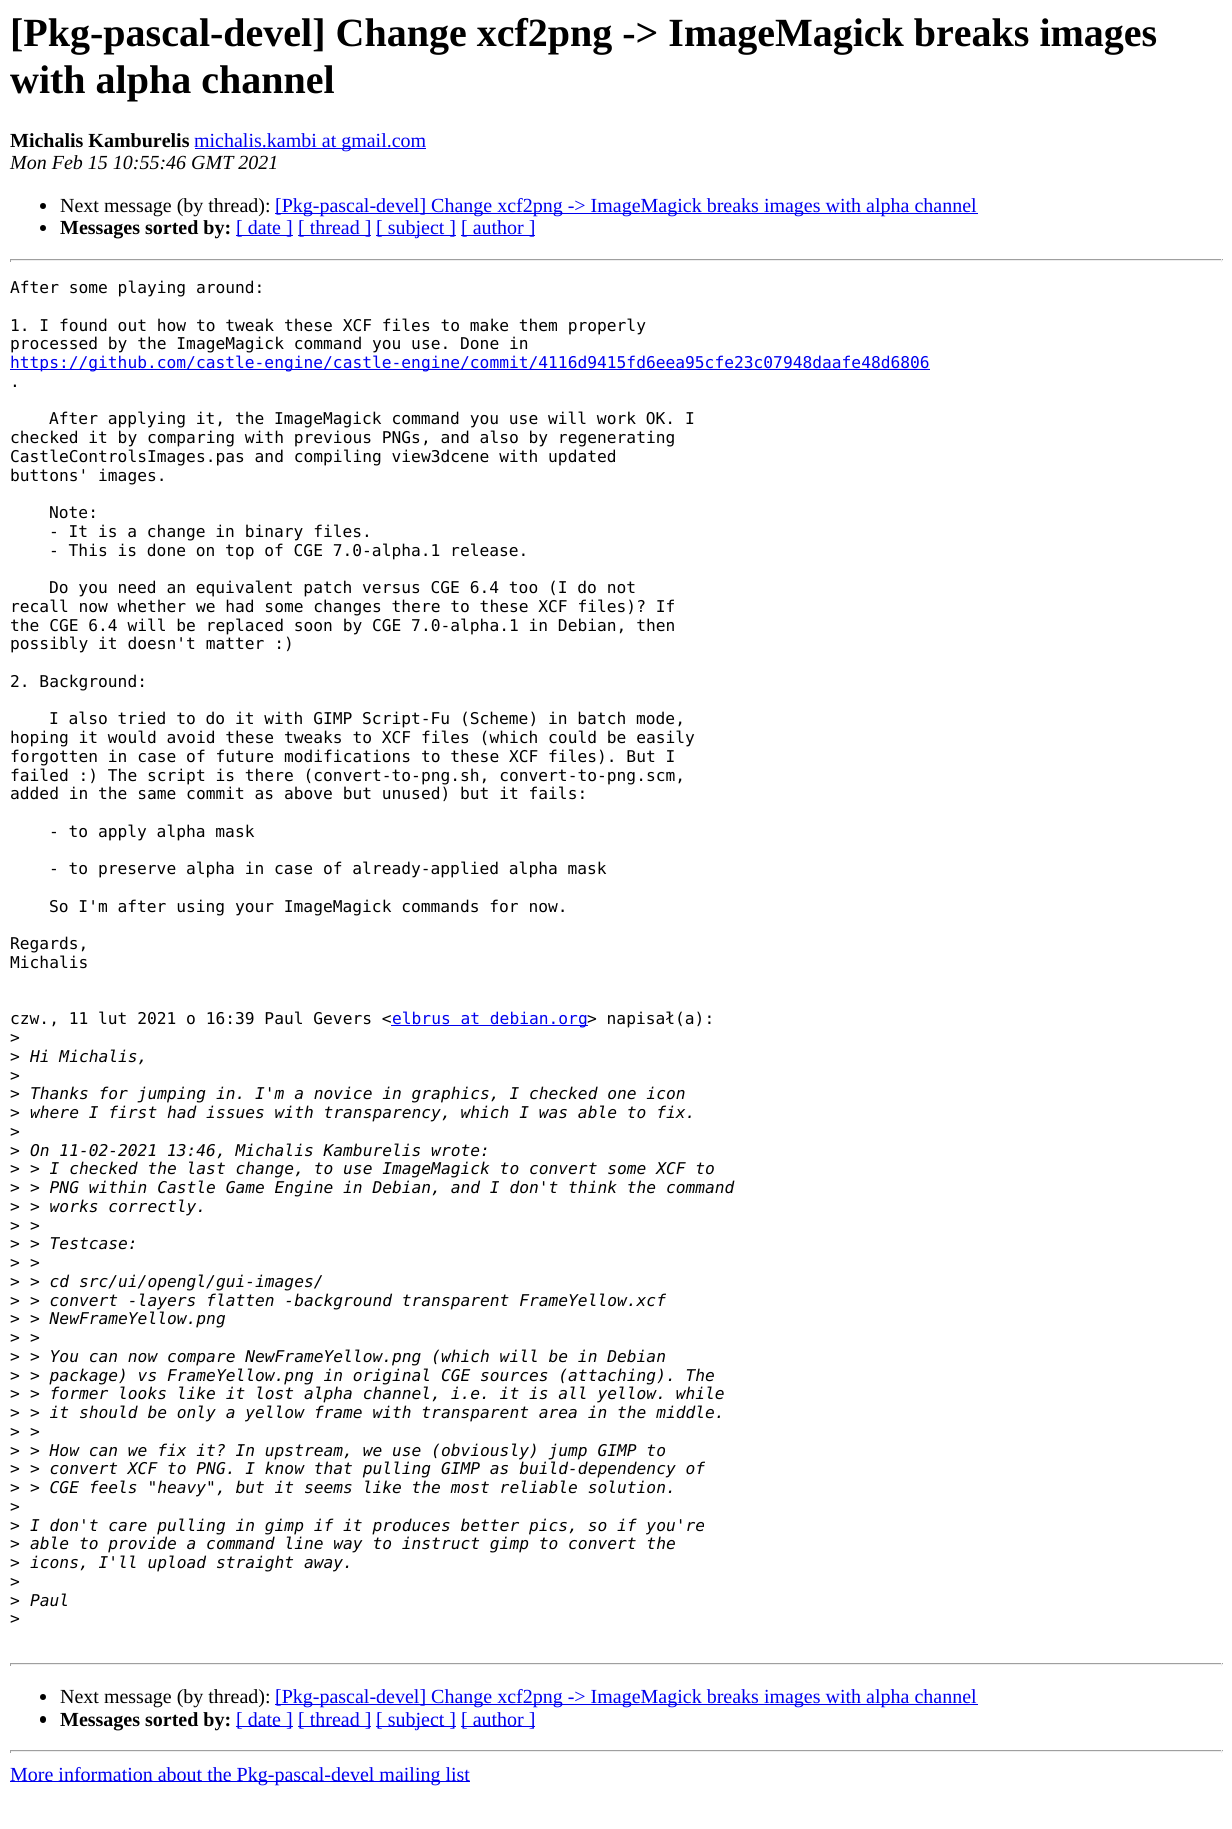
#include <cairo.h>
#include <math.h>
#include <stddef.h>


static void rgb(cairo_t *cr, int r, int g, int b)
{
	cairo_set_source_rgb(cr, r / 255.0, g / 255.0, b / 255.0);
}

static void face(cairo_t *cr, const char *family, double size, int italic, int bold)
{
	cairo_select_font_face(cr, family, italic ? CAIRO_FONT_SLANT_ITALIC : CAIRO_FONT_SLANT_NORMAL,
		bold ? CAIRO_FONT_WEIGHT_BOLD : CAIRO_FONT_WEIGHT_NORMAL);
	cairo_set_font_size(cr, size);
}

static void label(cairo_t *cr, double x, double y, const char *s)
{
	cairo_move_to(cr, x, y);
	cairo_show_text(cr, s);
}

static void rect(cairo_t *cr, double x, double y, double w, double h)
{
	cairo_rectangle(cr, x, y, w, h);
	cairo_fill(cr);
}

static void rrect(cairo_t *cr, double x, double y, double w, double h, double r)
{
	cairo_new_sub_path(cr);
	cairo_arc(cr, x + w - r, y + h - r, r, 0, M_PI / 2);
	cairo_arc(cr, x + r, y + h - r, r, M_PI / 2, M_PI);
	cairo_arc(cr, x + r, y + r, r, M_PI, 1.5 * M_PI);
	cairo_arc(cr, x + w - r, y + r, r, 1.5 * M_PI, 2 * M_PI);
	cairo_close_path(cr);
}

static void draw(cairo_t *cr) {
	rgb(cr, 255, 255, 255);
	cairo_paint(cr);
	face(cr, "Liberation Serif", 40, 0, 1);
	rgb(cr, 0, 0, 0);
	label(cr, 10, 46, "[Pkg-pascal-devel] Change xcf2png -> ImageMagick breaks images");
	label(cr, 10, 93, "with alpha channel");
	face(cr, "Liberation Serif", 20, 0, 1);
	label(cr, 10, 147, "Michalis Kamburelis");
	rgb(cr, 0, 0, 238);
	rect(cr, 195, 148, 231, 1);
	face(cr, "Liberation Serif", 20, 0, 0);
	label(cr, 194, 147, "michalis.kambi at gmail.com");
	face(cr, "Liberation Serif", 20, 1, 0);
	rgb(cr, 0, 0, 0);
	label(cr, 10, 169, "Mon Feb 15 10:55:46 GMT 2021");
	cairo_new_path(cr);
	cairo_arc(cr, 43, 206, 3, 0, 2 * M_PI);
	cairo_fill(cr);
	face(cr, "Liberation Serif", 20, 0, 0);
	label(cr, 60, 212, "Next message (by thread):");
	rgb(cr, 0, 0, 238);
	rect(cr, 275, 213, 703, 1);
	label(cr, 275, 212, "[Pkg-pascal-devel] Change xcf2png -> ImageMagick breaks images with alpha channel");
	rgb(cr, 0, 0, 0);
	cairo_new_path(cr);
	cairo_arc(cr, 43, 228, 3, 0, 2 * M_PI);
	cairo_fill(cr);
	face(cr, "Liberation Serif", 20, 0, 1);
	label(cr, 60, 234, "Messages sorted by:");
	rgb(cr, 0, 0, 238);
	rect(cr, 236, 235, 57, 1);
	face(cr, "Liberation Serif", 20, 0, 0);
	label(cr, 236, 234, "[ date ]");
	rect(cr, 298, 235, 73, 1);
	label(cr, 298, 234, "[ thread ]");
	rect(cr, 376, 235, 80, 1);
	label(cr, 376, 234, "[ subject ]");
	rect(cr, 461, 235, 74, 1);
	label(cr, 461, 234, "[ author ]");
	rgb(cr, 159, 159, 159);
	rect(cr, 10, 259, 1213, 1);
	rgb(cr, 238, 238, 238);
	rect(cr, 1221, 259, 1, 3);
	rect(cr, 10, 260, 1213, 1);
	rgb(cr, 159, 159, 159);
	rect(cr, 10, 259, 1, 3);
	face(cr, "DejaVu Sans Mono", 16.25, 0, 0);
	rgb(cr, 0, 0, 0);
	label(cr, 10, 293, "After some playing around:");
	label(cr, 10, 331, "1. I found out how to tweak these XCF files to make them properly");
	label(cr, 10, 349, "processed by the ImageMagick command you use. Done in");
	rgb(cr, 0, 0, 238);
	rect(cr, 10, 369, 920, 1);
	label(cr, 10, 368, "https://github.com/castle-engine/castle-engine/commit/4116d9415fd6eea95cfe23c07948daafe48d6806");
	rgb(cr, 0, 0, 0);
	label(cr, 10, 387, ".");
	label(cr, 49, 424, "After applying it, the ImageMagick command you use will work OK. I");
	label(cr, 10, 443, "checked it by comparing with previous PNGs, and also by regenerating");
	label(cr, 10, 462, "CastleControlsImages.pas and compiling view3dcene with updated");
	label(cr, 10, 481, "buttons' images.");
	label(cr, 49, 518, "Note:");
	label(cr, 49, 537, "- It is a change in binary files.");
	label(cr, 49, 556, "- This is done on top of CGE 7.0-alpha.1 release.");
	label(cr, 49, 593, "Do you need an equivalent patch versus CGE 6.4 too (I do not");
	label(cr, 10, 612, "recall now whether we had some changes there to these XCF files)? If");
	label(cr, 10, 631, "the CGE 6.4 will be replaced soon by CGE 7.0-alpha.1 in Debian, then");
	label(cr, 10, 649, "possibly it doesn't matter :)");
	label(cr, 10, 687, "2. Background:");
	label(cr, 49, 724, "I also tried to do it with GIMP Script-Fu (Scheme) in batch mode,");
	label(cr, 10, 743, "hoping it would avoid these tweaks to XCF files (which could be easily");
	label(cr, 10, 762, "forgotten in case of future modifications to these XCF files). But I");
	label(cr, 10, 781, "failed :) The script is there (convert-to-png.sh, convert-to-png.scm,");
	label(cr, 10, 799, "added in the same commit as above but unused) but it fails:");
	label(cr, 49, 837, "- to apply alpha mask");
	label(cr, 49, 874, "- to preserve alpha in case of already-applied alpha mask");
	label(cr, 49, 912, "So I'm after using your ImageMagick commands for now.");
	label(cr, 10, 949, "Regards,");
	label(cr, 10, 968, "Michalis");
	label(cr, 10, 1024, "czw., 11 lut 2021 o 16:39 Paul Gevers <");
	rgb(cr, 0, 0, 238);
	rect(cr, 391, 1025, 197, 1);
	label(cr, 392, 1024, "elbrus at debian.org");
	rgb(cr, 0, 0, 0);
	label(cr, 587, 1024, "> napisał(a):");
	label(cr, 10, 1043, ">");
	label(cr, 10, 1062, ">");
	face(cr, "DejaVu Sans Mono", 16.25, 1, 0);
	label(cr, 30, 1062, "Hi Michalis,");
	face(cr, "DejaVu Sans Mono", 16.25, 0, 0);
	label(cr, 10, 1081, ">");
	label(cr, 10, 1099, ">");
	face(cr, "DejaVu Sans Mono", 16.25, 1, 0);
	label(cr, 30, 1099, "Thanks for jumping in. I'm a novice in graphics, I checked one icon");
	face(cr, "DejaVu Sans Mono", 16.25, 0, 0);
	label(cr, 10, 1118, ">");
	face(cr, "DejaVu Sans Mono", 16.25, 1, 0);
	label(cr, 30, 1118, "where I first had issues with transparency, which I was able to fix.");
	face(cr, "DejaVu Sans Mono", 16.25, 0, 0);
	label(cr, 10, 1137, ">");
	label(cr, 10, 1156, ">");
	face(cr, "DejaVu Sans Mono", 16.25, 1, 0);
	label(cr, 30, 1156, "On 11-02-2021 13:46, Michalis Kamburelis wrote:");
	face(cr, "DejaVu Sans Mono", 16.25, 0, 0);
	label(cr, 10, 1174, ">");
	face(cr, "DejaVu Sans Mono", 16.25, 1, 0);
	label(cr, 30, 1174, "> I checked the last change, to use ImageMagick to convert some XCF to");
	face(cr, "DejaVu Sans Mono", 16.25, 0, 0);
	label(cr, 10, 1193, ">");
	face(cr, "DejaVu Sans Mono", 16.25, 1, 0);
	label(cr, 30, 1193, "> PNG within Castle Game Engine in Debian, and I don't think the command");
	face(cr, "DejaVu Sans Mono", 16.25, 0, 0);
	label(cr, 10, 1212, ">");
	face(cr, "DejaVu Sans Mono", 16.25, 1, 0);
	label(cr, 30, 1212, "> works correctly.");
	face(cr, "DejaVu Sans Mono", 16.25, 0, 0);
	label(cr, 10, 1231, ">");
	face(cr, "DejaVu Sans Mono", 16.25, 1, 0);
	label(cr, 30, 1231, ">");
	face(cr, "DejaVu Sans Mono", 16.25, 0, 0);
	label(cr, 10, 1249, ">");
	face(cr, "DejaVu Sans Mono", 16.25, 1, 0);
	label(cr, 30, 1249, "> Testcase:");
	face(cr, "DejaVu Sans Mono", 16.25, 0, 0);
	label(cr, 10, 1268, ">");
	face(cr, "DejaVu Sans Mono", 16.25, 1, 0);
	label(cr, 30, 1268, ">");
	face(cr, "DejaVu Sans Mono", 16.25, 0, 0);
	label(cr, 10, 1287, ">");
	face(cr, "DejaVu Sans Mono", 16.25, 1, 0);
	label(cr, 30, 1287, "> cd src/ui/opengl/gui-images/");
	face(cr, "DejaVu Sans Mono", 16.25, 0, 0);
	label(cr, 10, 1306, ">");
	face(cr, "DejaVu Sans Mono", 16.25, 1, 0);
	label(cr, 30, 1306, "> convert -layers flatten -background transparent FrameYellow.xcf");
	face(cr, "DejaVu Sans Mono", 16.25, 0, 0);
	label(cr, 10, 1324, ">");
	face(cr, "DejaVu Sans Mono", 16.25, 1, 0);
	label(cr, 30, 1324, "> NewFrameYellow.png");
	face(cr, "DejaVu Sans Mono", 16.25, 0, 0);
	label(cr, 10, 1343, ">");
	face(cr, "DejaVu Sans Mono", 16.25, 1, 0);
	label(cr, 30, 1343, ">");
	face(cr, "DejaVu Sans Mono", 16.25, 0, 0);
	label(cr, 10, 1362, ">");
	face(cr, "DejaVu Sans Mono", 16.25, 1, 0);
	label(cr, 30, 1362, "> You can now compare NewFrameYellow.png (which will be in Debian");
	face(cr, "DejaVu Sans Mono", 16.25, 0, 0);
	label(cr, 10, 1381, ">");
	face(cr, "DejaVu Sans Mono", 16.25, 1, 0);
	label(cr, 30, 1381, "> package) vs FrameYellow.png in original CGE sources (attaching). The");
	face(cr, "DejaVu Sans Mono", 16.25, 0, 0);
	label(cr, 10, 1399, ">");
	face(cr, "DejaVu Sans Mono", 16.25, 1, 0);
	label(cr, 30, 1399, "> former looks like it lost alpha channel, i.e. it is all yellow. while");
	face(cr, "DejaVu Sans Mono", 16.25, 0, 0);
	label(cr, 10, 1418, ">");
	face(cr, "DejaVu Sans Mono", 16.25, 1, 0);
	label(cr, 30, 1418, "> it should be only a yellow frame with transparent area in the middle.");
	face(cr, "DejaVu Sans Mono", 16.25, 0, 0);
	label(cr, 10, 1437, ">");
	face(cr, "DejaVu Sans Mono", 16.25, 1, 0);
	label(cr, 30, 1437, ">");
	face(cr, "DejaVu Sans Mono", 16.25, 0, 0);
	label(cr, 10, 1456, ">");
	face(cr, "DejaVu Sans Mono", 16.25, 1, 0);
	label(cr, 30, 1456, "> How can we fix it? In upstream, we use (obviously) jump GIMP to");
	face(cr, "DejaVu Sans Mono", 16.25, 0, 0);
	label(cr, 10, 1474, ">");
	face(cr, "DejaVu Sans Mono", 16.25, 1, 0);
	label(cr, 30, 1474, "> convert XCF to PNG. I know that pulling GIMP as build-dependency of");
	face(cr, "DejaVu Sans Mono", 16.25, 0, 0);
	label(cr, 10, 1493, ">");
	face(cr, "DejaVu Sans Mono", 16.25, 1, 0);
	label(cr, 30, 1493, "> CGE feels \"heavy\", but it seems like the most reliable solution.");
	face(cr, "DejaVu Sans Mono", 16.25, 0, 0);
	label(cr, 10, 1512, ">");
	label(cr, 10, 1531, ">");
	face(cr, "DejaVu Sans Mono", 16.25, 1, 0);
	label(cr, 30, 1531, "I don't care pulling in gimp if it produces better pics, so if you're");
	face(cr, "DejaVu Sans Mono", 16.25, 0, 0);
	label(cr, 10, 1549, ">");
	face(cr, "DejaVu Sans Mono", 16.25, 1, 0);
	label(cr, 30, 1549, "able to provide a command line way to instruct gimp to convert the");
	face(cr, "DejaVu Sans Mono", 16.25, 0, 0);
	label(cr, 10, 1568, ">");
	face(cr, "DejaVu Sans Mono", 16.25, 1, 0);
	label(cr, 30, 1568, "icons, I'll upload straight away.");
	face(cr, "DejaVu Sans Mono", 16.25, 0, 0);
	label(cr, 10, 1587, ">");
	label(cr, 10, 1606, ">");
	face(cr, "DejaVu Sans Mono", 16.25, 1, 0);
	label(cr, 30, 1606, "Paul");
	face(cr, "DejaVu Sans Mono", 16.25, 0, 0);
	label(cr, 10, 1624, ">");
	rgb(cr, 159, 159, 159);
	rect(cr, 10, 1663, 1213, 1);
	rgb(cr, 238, 238, 238);
	rect(cr, 1221, 1663, 1, 3);
	rect(cr, 10, 1664, 1213, 1);
	rgb(cr, 159, 159, 159);
	rect(cr, 10, 1663, 1, 3);
	rgb(cr, 0, 0, 0);
	cairo_new_path(cr);
	cairo_arc(cr, 43, 1697, 3, 0, 2 * M_PI);
	cairo_fill(cr);
	face(cr, "Liberation Serif", 20, 0, 0);
	label(cr, 60, 1703, "Next message (by thread):");
	rgb(cr, 0, 0, 238);
	rect(cr, 275, 1704, 703, 1);
	label(cr, 275, 1703, "[Pkg-pascal-devel] Change xcf2png -> ImageMagick breaks images with alpha channel");
	rgb(cr, 0, 0, 0);
	rrect(cr, 40, 1716, 6, 7, 3);
	cairo_fill(cr);
	face(cr, "Liberation Serif", 20, 0, 1);
	label(cr, 60, 1726, "Messages sorted by:");
	rgb(cr, 0, 0, 238);
	rect(cr, 236, 1726, 57, 1);
	face(cr, "Liberation Serif", 20, 0, 0);
	label(cr, 236, 1726, "[ date ]");
	rect(cr, 298, 1726, 73, 1);
	label(cr, 298, 1726, "[ thread ]");
	rect(cr, 376, 1726, 80, 1);
	label(cr, 376, 1726, "[ subject ]");
	rect(cr, 461, 1726, 74, 1);
	label(cr, 461, 1726, "[ author ]");
	rgb(cr, 159, 159, 159);
	rect(cr, 10, 1750, 1213, 1);
	rgb(cr, 238, 238, 238);
	rect(cr, 1221, 1750, 1, 3);
	rect(cr, 10, 1751, 1213, 1);
	rgb(cr, 159, 159, 159);
	rect(cr, 10, 1750, 1, 3);
	rgb(cr, 0, 0, 238);
	rect(cr, 10, 1781, 460, 1);
	label(cr, 10, 1781, "More information about the Pkg-pascal-devel mailing list");
}

int main(void) {
	cairo_surface_t *surface = cairo_image_surface_create(CAIRO_FORMAT_RGB24, 1232, 1829);
	cairo_t *cr = cairo_create(surface);
	cairo_font_options_t *options = cairo_font_options_create();
	cairo_font_options_set_hint_metrics(options, CAIRO_HINT_METRICS_OFF);
	cairo_font_options_set_hint_style(options, CAIRO_HINT_STYLE_NONE);
	cairo_set_font_options(cr, options);
	cairo_set_miter_limit(cr, 4);
	draw(cr);
	cairo_surface_write_to_png(surface, "render.png");
	cairo_font_options_destroy(options);
	cairo_destroy(cr);
	cairo_surface_destroy(surface);
	return 0;
}
